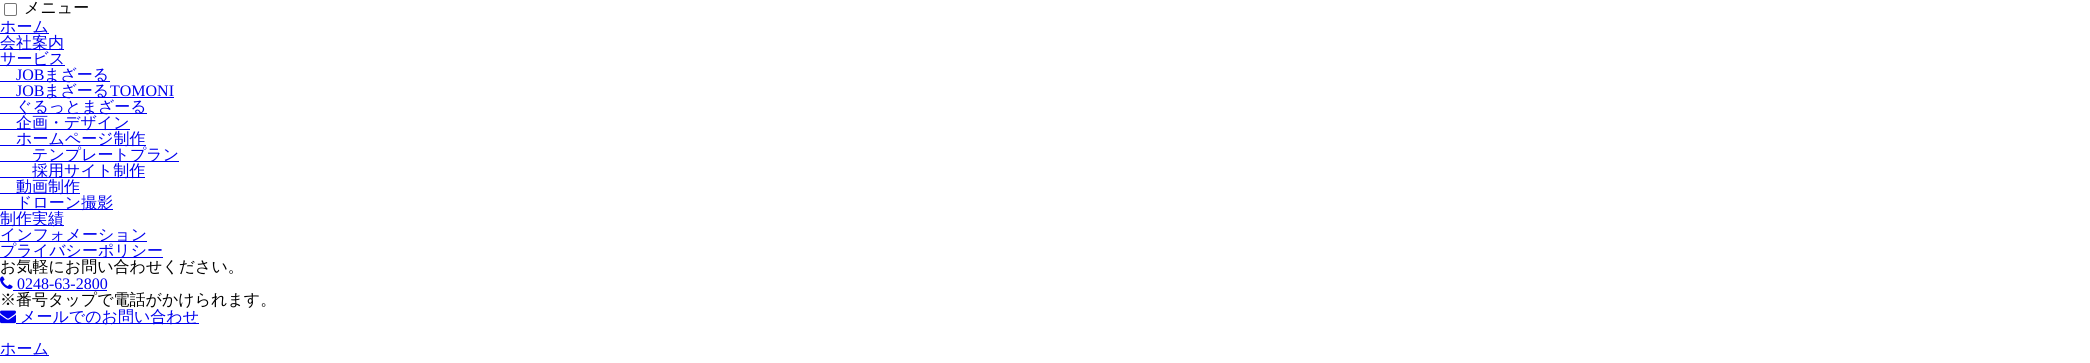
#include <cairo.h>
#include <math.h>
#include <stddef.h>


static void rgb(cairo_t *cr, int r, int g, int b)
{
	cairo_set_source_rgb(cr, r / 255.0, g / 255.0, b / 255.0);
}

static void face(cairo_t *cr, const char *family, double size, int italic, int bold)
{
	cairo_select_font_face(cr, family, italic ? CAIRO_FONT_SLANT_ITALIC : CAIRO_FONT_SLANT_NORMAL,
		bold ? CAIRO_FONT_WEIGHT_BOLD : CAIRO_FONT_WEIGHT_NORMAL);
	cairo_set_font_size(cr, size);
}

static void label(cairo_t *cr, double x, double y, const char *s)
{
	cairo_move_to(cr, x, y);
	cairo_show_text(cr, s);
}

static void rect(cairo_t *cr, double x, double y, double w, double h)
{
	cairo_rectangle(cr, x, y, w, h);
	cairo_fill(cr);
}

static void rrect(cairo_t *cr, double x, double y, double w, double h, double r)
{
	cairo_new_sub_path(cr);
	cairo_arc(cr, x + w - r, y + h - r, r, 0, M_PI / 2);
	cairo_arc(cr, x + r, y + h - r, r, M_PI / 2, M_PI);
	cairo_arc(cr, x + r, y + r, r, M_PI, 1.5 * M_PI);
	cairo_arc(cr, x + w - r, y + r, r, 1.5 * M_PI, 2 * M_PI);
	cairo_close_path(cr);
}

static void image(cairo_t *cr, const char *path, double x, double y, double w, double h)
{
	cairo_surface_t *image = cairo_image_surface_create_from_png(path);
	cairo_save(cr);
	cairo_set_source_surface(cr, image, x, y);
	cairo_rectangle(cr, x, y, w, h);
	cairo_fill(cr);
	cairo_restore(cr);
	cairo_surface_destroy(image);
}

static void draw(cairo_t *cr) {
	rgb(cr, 255, 255, 255);
	cairo_paint(cr);
	rrect(cr, 4.5, 3.5, 12, 12, 1.5);
	rgb(cr, 118, 118, 118);
	cairo_set_line_width(cr, 1);
	cairo_stroke(cr);
	face(cr, "WenQuanYi Zen Hei Medium", 16, 0, 0);
	rgb(cr, 0, 0, 0);
	label(cr, 24, 13, "メニュー");
	rgb(cr, 0, 0, 238);
	rect(cr, 0, 33, 49, 1);
	label(cr, 0, 32, "ホーム");
	rect(cr, 0, 49, 64, 1);
	label(cr, 0, 48, "会社案内");
	rect(cr, 0, 65, 65, 1);
	label(cr, 0, 64, "サービス");
	face(cr, "Liberation Serif", 16, 0, 0);
	label(cr, 16, 80, "JOB");
	rect(cr, 0, 81, 110, 1);
	face(cr, "WenQuanYi Zen Hei Medium", 16, 0, 0);
	label(cr, 44, 80, "まざーる");
	face(cr, "Liberation Serif", 16, 0, 0);
	label(cr, 16, 96, "JOB");
	rect(cr, 0, 97, 174, 1);
	face(cr, "WenQuanYi Zen Hei Medium", 16, 0, 0);
	label(cr, 44, 96, "まざーる");
	face(cr, "Liberation Serif", 16, 0, 0);
	label(cr, 110, 96, "TOMONI");
	rect(cr, 0, 113, 147, 1);
	face(cr, "WenQuanYi Zen Hei Medium", 16, 0, 0);
	label(cr, 16, 112, "ぐるっとまざーる");
	rect(cr, 0, 129, 130, 1);
	label(cr, 16, 128, "企画・デザイン");
	rect(cr, 0, 145, 146, 1);
	label(cr, 16, 144, "ホームページ制作");
	rect(cr, 0, 161, 179, 1);
	label(cr, 32, 160, "テンプレートプラン");
	rect(cr, 0, 177, 145, 1);
	label(cr, 32, 176, "採用サイト制作");
	rect(cr, 0, 193, 80, 1);
	label(cr, 16, 192, "動画制作");
	rect(cr, 0, 209, 113, 1);
	label(cr, 16, 208, "ドローン撮影");
	rect(cr, 0, 225, 64, 1);
	label(cr, 0, 224, "制作実績");
	rect(cr, 0, 241, 147, 1);
	label(cr, 0, 240, "インフォメーション");
	rect(cr, 0, 257, 163, 1);
	label(cr, 0, 256, "プライバシーポリシー");
	rgb(cr, 0, 0, 0);
	label(cr, 0, 272, "お気軽にお問い合わせください。");
	image(cr, "image0.png", 0, 276, 13, 13);
	face(cr, "Liberation Serif", 16, 0, 0);
	rgb(cr, 0, 0, 238);
	label(cr, 17, 289, "0248-63-2800");
	rect(cr, 13, 290, 94, 1);
	face(cr, "WenQuanYi Zen Hei Medium", 16, 0, 0);
	rgb(cr, 0, 0, 0);
	label(cr, 0, 305, "※番号タップで電話がかけられます。");
	image(cr, "image1.png", 0, 310, 16, 14);
	rgb(cr, 0, 0, 238);
	rect(cr, 16, 323, 183, 1);
	label(cr, 20, 322, "メールでのお問い合わせ");
	rect(cr, 0, 355, 49, 1);
	label(cr, 0, 354, "ホーム");
}

int main(void) {
	cairo_surface_t *surface = cairo_image_surface_create(CAIRO_FORMAT_RGB24, 2090, 363);
	cairo_t *cr = cairo_create(surface);
	cairo_font_options_t *options = cairo_font_options_create();
	cairo_font_options_set_hint_metrics(options, CAIRO_HINT_METRICS_OFF);
	cairo_font_options_set_hint_style(options, CAIRO_HINT_STYLE_NONE);
	cairo_set_font_options(cr, options);
	cairo_set_miter_limit(cr, 4);
	draw(cr);
	cairo_surface_write_to_png(surface, "render.png");
	cairo_font_options_destroy(options);
	cairo_destroy(cr);
	cairo_surface_destroy(surface);
	return 0;
}
